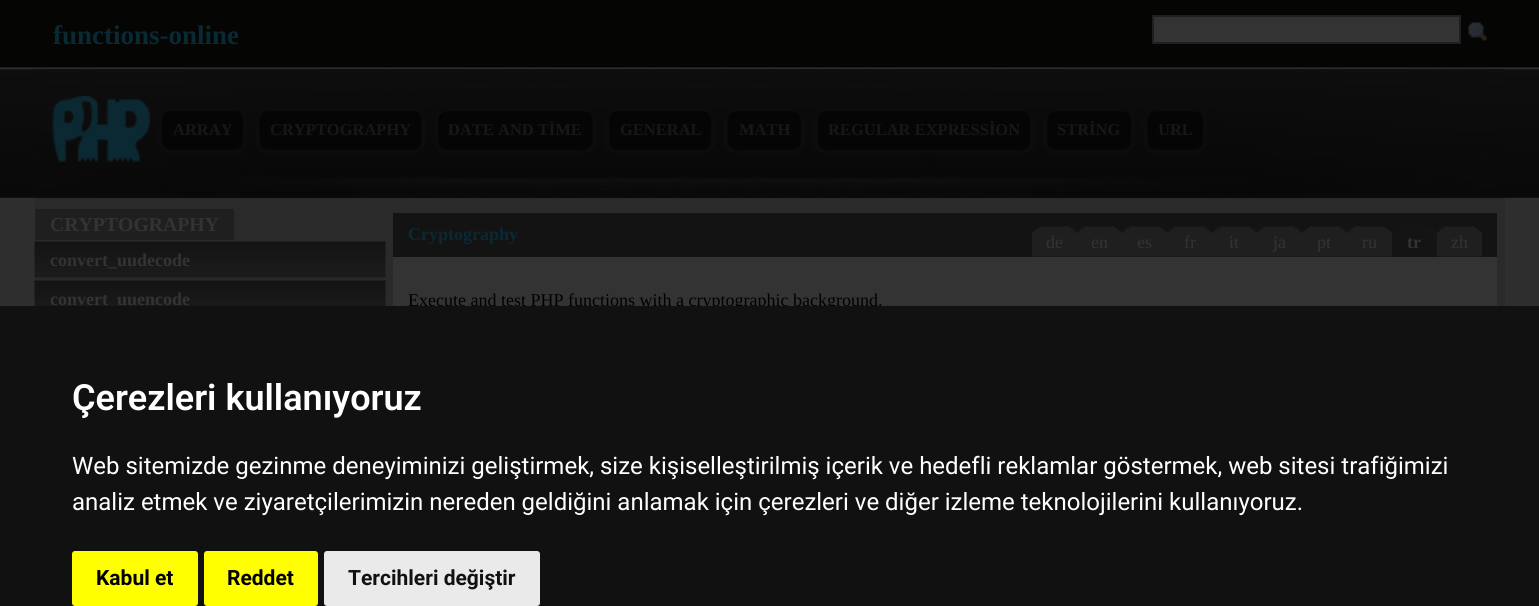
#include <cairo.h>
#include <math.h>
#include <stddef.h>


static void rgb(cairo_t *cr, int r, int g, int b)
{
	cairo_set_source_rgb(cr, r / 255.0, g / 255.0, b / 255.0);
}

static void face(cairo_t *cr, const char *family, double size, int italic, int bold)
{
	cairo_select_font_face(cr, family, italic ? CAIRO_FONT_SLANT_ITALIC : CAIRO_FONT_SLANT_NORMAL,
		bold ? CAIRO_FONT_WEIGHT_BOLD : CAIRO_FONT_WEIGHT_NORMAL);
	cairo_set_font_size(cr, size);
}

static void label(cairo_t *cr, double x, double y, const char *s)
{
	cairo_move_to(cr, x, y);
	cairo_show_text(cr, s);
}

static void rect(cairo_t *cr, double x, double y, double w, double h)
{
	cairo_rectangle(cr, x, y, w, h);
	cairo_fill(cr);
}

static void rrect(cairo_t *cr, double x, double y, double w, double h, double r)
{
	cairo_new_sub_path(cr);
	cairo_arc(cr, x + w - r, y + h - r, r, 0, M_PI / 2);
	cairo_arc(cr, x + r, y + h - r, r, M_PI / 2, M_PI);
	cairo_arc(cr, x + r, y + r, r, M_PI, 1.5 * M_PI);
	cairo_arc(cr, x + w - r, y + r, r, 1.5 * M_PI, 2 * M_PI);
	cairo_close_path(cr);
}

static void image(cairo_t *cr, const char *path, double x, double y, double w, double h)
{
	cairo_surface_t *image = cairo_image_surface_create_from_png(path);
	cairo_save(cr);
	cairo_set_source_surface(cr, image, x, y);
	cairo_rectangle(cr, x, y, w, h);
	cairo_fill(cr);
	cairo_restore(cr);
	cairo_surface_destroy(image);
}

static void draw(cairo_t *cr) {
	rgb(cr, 5, 5, 4);
	cairo_paint(cr);
	image(cr, "image0.png", 0, 67, 1539, 131);
	face(cr, "Liberation Serif", 27, 0, 1);
	rgb(cr, 9, 41, 51);
	label(cr, 53, 44, "functions-online");
	rgb(cr, 51, 51, 51);
	cairo_rectangle(cr, 1153, 16, 307, 27);
	cairo_fill_preserve(cr);
	rgb(cr, 31, 31, 31);
	cairo_stroke(cr);
	image(cr, "image1.png", 1468, 22, 19, 19);
	image(cr, "image2.png", 34, 69, 1471, 129);
	image(cr, "image3.png", 52, 96, 98, 66);
	image(cr, "image4.png", 157, 111, 14, 42);
	image(cr, "image5.png", 171, 111, 63, 42);
	face(cr, "Liberation Serif", 16.5, 0, 1);
	rgb(cr, 23, 23, 23);
	label(cr, 173, 135, "ARRAY");
	image(cr, "image6.png", 234, 111, 14, 42);
	image(cr, "image7.png", 255, 111, 14, 42);
	image(cr, "image8.png", 268, 109, 145, 44);
	label(cr, 270, 135, "CRYPTOGRAPHY");
	image(cr, "image9.png", 412, 109, 14, 44);
	image(cr, "image10.png", 433, 109, 14, 44);
	image(cr, "image11.png", 447, 109, 137, 44);
	label(cr, 448, 135, "DATE AND TİME");
	image(cr, "image12.png", 583, 109, 14, 44);
	image(cr, "image10.png", 604, 109, 14, 44);
	image(cr, "image13.png", 618, 109, 84, 44);
	label(cr, 620, 135, "GENERAL");
	image(cr, "image14.png", 702, 109, 14, 44);
	image(cr, "image15.png", 723, 109, 14, 44);
	image(cr, "image16.png", 736, 109, 56, 44);
	label(cr, 739, 135, "MATH");
	image(cr, "image17.png", 792, 109, 14, 44);
	image(cr, "image18.png", 813, 109, 14, 44);
	image(cr, "image19.png", 826, 109, 196, 44);
	label(cr, 828, 135, "REGULAR EXPRESSİON");
	image(cr, "image20.png", 1021, 111, 14, 42);
	image(cr, "image10.png", 1042, 109, 14, 44);
	image(cr, "image21.png", 1056, 109, 66, 44);
	label(cr, 1057, 135, "STRİNG");
	image(cr, "image14.png", 1122, 109, 14, 44);
	image(cr, "image22.png", 1143, 111, 14, 42);
	image(cr, "image23.png", 1156, 109, 38, 44);
	label(cr, 1158, 135, "URL");
	image(cr, "image14.png", 1194, 109, 14, 44);
	rgb(cr, 46, 46, 46);
	rect(cr, 0, 198, 1539, 108);
	rgb(cr, 42, 42, 42);
	rect(cr, 35, 198, 1470, 108);
	rgb(cr, 31, 31, 31);
	rect(cr, 35, 209, 199, 31);
	face(cr, "Liberation Serif", 19.75, 0, 1);
	rgb(cr, 51, 51, 51);
	label(cr, 50, 231, "CRYPTOGRAPHY");
	image(cr, "image24.png", 34, 241, 352, 37);
	face(cr, "Liberation Serif", 18, 0, 1);
	label(cr, 50, 266, "convert_uudecode");
	image(cr, "image25.png", 34, 280, 352, 26);
	label(cr, 50, 305, "convert_uuencode");
	rgb(cr, 19, 19, 19);
	rect(cr, 393, 213, 1104, 44);
	rgb(cr, 9, 41, 51);
	label(cr, 408, 240, "Cryptography");
	image(cr, "image26.png", 1032, 226, 45, 31);
	face(cr, "Liberation Serif", 18, 0, 0);
	rgb(cr, 51, 51, 51);
	label(cr, 1046, 248, "de");
	image(cr, "image27.png", 1077, 226, 45, 31);
	label(cr, 1091, 248, "en");
	image(cr, "image27.png", 1122, 226, 45, 31);
	label(cr, 1137, 248, "es");
	image(cr, "image27.png", 1167, 226, 45, 31);
	label(cr, 1184, 248, "fr");
	image(cr, "image27.png", 1212, 226, 45, 31);
	label(cr, 1229, 248, "it");
	image(cr, "image26.png", 1257, 226, 45, 31);
	label(cr, 1273, 248, "ja");
	image(cr, "image28.png", 1302, 226, 45, 31);
	label(cr, 1317, 248, "pt");
	image(cr, "image27.png", 1347, 226, 45, 31);
	label(cr, 1362, 248, "ru");
	image(cr, "image29.png", 1392, 227, 45, 29);
	face(cr, "Liberation Serif", 18, 0, 1);
	label(cr, 1407, 248, "tr");
	image(cr, "image28.png", 1437, 226, 45, 31);
	face(cr, "Liberation Serif", 18, 0, 0);
	label(cr, 1451, 248, "zh");
	rect(cr, 393, 257, 1104, 49);
	rgb(cr, 0, 0, 0);
	label(cr, 408, 306, "Execute and test PHP functions with a cryptographic background.");
	rgb(cr, 17, 17, 17);
	rect(cr, 0, 306, 1539, 300);
	face(cr, "Roboto SemiBold", 36, 0, 0);
	rgb(cr, 255, 255, 255);
	label(cr, 72, 410, "Çerezleri kullanıyoruz");
	face(cr, "Roboto", 24, 0, 0);
	label(cr, 72, 474, "Web sitemizde gezinme deneyiminizi geliştirmek, size kişiselleştirilmiş içerik ve hedefli reklamlar göstermek, web sitesi trafiğimizi");
	label(cr, 72, 510, "analiz etmek ve ziyaretçilerimizin nereden geldiğini anlamak için çerezleri ve diğer izleme teknolojilerini kullanıyoruz.");
	rgb(cr, 255, 255, 0);
	rrect(cr, 72, 551, 126, 55, 3);
	cairo_fill(cr);
	face(cr, "Roboto", 21, 0, 1);
	rgb(cr, 0, 0, 0);
	label(cr, 96, 585, "Kabul et");
	rgb(cr, 255, 255, 0);
	rrect(cr, 204, 551, 114, 55, 3);
	cairo_fill(cr);
	rgb(cr, 0, 0, 0);
	label(cr, 227, 585, "Reddet");
	rgb(cr, 234, 234, 234);
	rrect(cr, 324, 551, 216, 55, 3);
	cairo_fill(cr);
	rgb(cr, 17, 17, 17);
	label(cr, 348, 585, "Tercihleri değiştir");
}

int main(void) {
	cairo_surface_t *surface = cairo_image_surface_create(CAIRO_FORMAT_RGB24, 1539, 606);
	cairo_t *cr = cairo_create(surface);
	cairo_font_options_t *options = cairo_font_options_create();
	cairo_font_options_set_hint_metrics(options, CAIRO_HINT_METRICS_OFF);
	cairo_font_options_set_hint_style(options, CAIRO_HINT_STYLE_NONE);
	cairo_set_font_options(cr, options);
	cairo_set_miter_limit(cr, 4);
	draw(cr);
	cairo_surface_write_to_png(surface, "render.png");
	cairo_font_options_destroy(options);
	cairo_destroy(cr);
	cairo_surface_destroy(surface);
	return 0;
}
